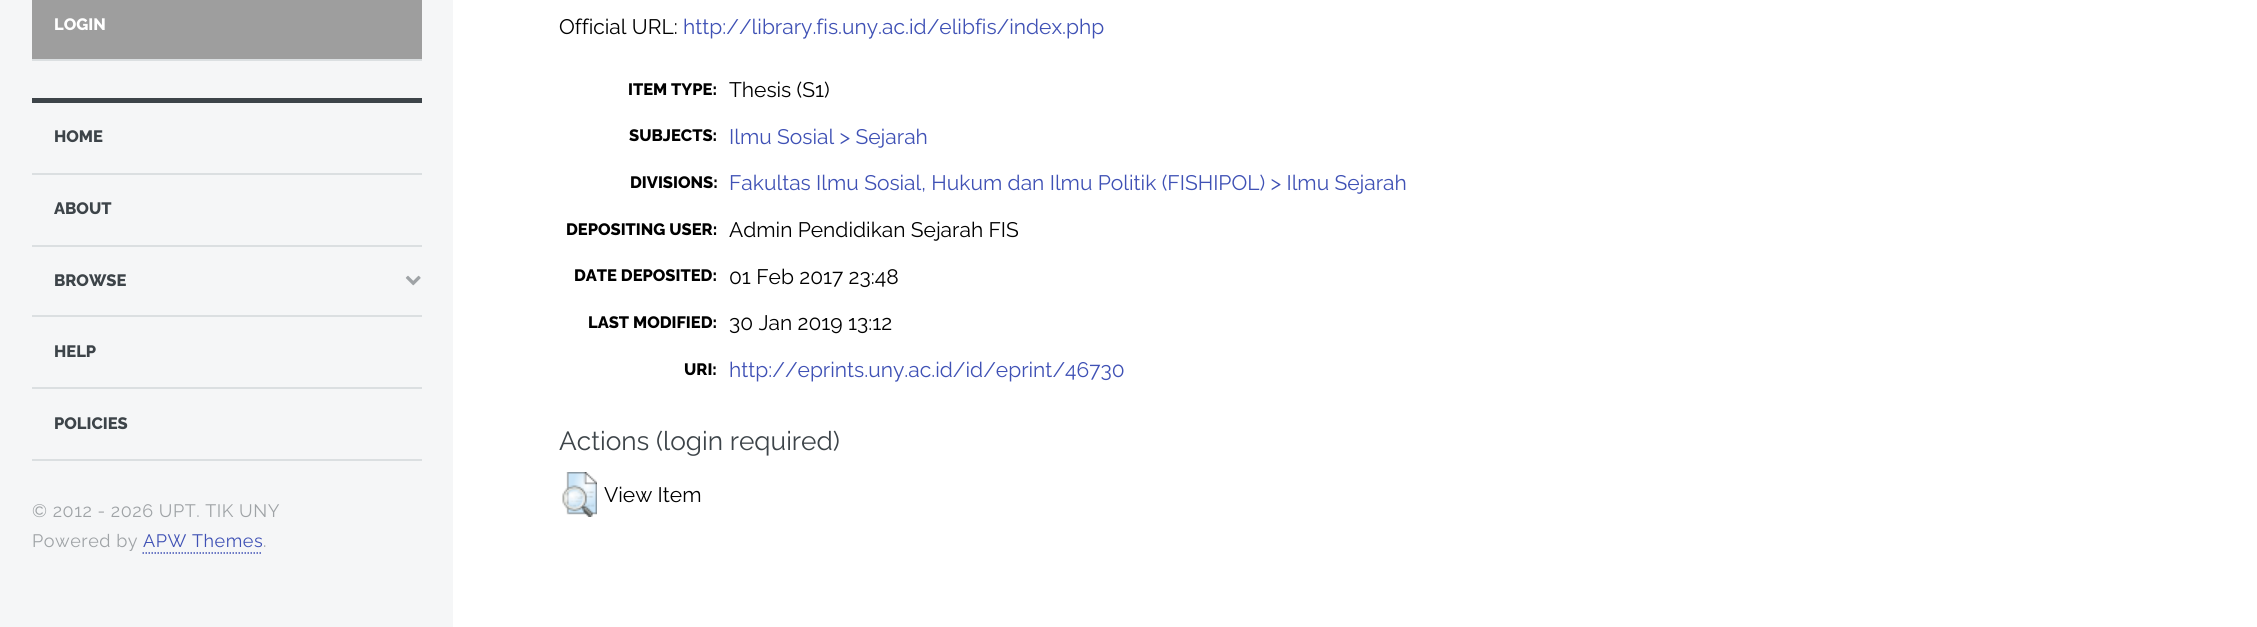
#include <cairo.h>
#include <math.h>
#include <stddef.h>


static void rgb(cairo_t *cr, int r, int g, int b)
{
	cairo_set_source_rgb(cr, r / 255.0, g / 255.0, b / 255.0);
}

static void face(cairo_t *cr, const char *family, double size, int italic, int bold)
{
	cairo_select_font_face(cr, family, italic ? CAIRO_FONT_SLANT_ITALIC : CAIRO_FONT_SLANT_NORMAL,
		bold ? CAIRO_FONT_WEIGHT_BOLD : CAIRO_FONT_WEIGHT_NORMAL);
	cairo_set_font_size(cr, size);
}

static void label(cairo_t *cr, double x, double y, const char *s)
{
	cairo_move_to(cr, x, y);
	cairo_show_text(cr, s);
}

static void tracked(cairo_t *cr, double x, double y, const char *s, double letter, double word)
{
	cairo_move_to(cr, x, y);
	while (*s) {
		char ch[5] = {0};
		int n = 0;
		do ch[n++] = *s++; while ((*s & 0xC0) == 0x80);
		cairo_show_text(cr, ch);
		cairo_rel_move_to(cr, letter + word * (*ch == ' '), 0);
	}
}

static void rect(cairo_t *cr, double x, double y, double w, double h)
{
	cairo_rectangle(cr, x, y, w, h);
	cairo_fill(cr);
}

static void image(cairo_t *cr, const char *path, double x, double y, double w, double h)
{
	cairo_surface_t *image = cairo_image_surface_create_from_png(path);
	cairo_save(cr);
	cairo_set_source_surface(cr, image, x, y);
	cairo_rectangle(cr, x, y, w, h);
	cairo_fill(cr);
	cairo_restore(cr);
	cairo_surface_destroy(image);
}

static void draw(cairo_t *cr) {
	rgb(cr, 255, 255, 255);
	cairo_paint(cr);
	rgb(cr, 245, 246, 247);
	rect(cr, 0, 0, 453, 627);
	rgb(cr, 158, 158, 158);
	rect(cr, 32, 0, 390, 59);
	rgb(cr, 219, 223, 225);
	rect(cr, 32, 59, 390, 2);
	face(cr, "Raleway ExtraBold", 16.5, 0, 0);
	rgb(cr, 255, 255, 255);
	label(cr, 54, 30, "LOGIN");
	rgb(cr, 61, 68, 73);
	rect(cr, 32, 98, 390, 5);
	label(cr, 54, 142, "HOME");
	rgb(cr, 219, 223, 225);
	rect(cr, 32, 173, 390, 2);
	rgb(cr, 61, 68, 73);
	label(cr, 54, 214, "ABOUT");
	rgb(cr, 219, 223, 225);
	rect(cr, 32, 245, 390, 2);
	rgb(cr, 61, 68, 73);
	label(cr, 54, 286, "BROWSE");
	image(cr, "image0.png", 405, 275, 16, 11);
	rgb(cr, 219, 223, 225);
	rect(cr, 32, 315, 390, 2);
	rgb(cr, 61, 68, 73);
	label(cr, 54, 357, "HELP");
	rgb(cr, 219, 223, 225);
	rect(cr, 32, 387, 390, 2);
	rect(cr, 32, 459, 390, 2);
	rgb(cr, 61, 68, 73);
	label(cr, 54, 429, "POLICIES");
	face(cr, "Raleway", 18, 0, 0);
	rgb(cr, 159, 163, 166);
	tracked(cr, 32, 517, "© 2012 - 2026 UPT. TIK UNY", 0.55, 0);
	tracked(cr, 32, 547, "Powered by", 0.55, 0);
	rgb(cr, 63, 81, 181);
	tracked(cr, 143, 547, "APW Themes", 0.55, 0);
	cairo_new_path(cr);
	cairo_move_to(cr, 142.5, 553);
	cairo_line_to(cr, 262.5, 553);
	cairo_set_line_width(cr, 1.5);
	cairo_set_dash(cr, (double[]){1.5, 1.5}, 2, 0);
	cairo_stroke(cr);
	rgb(cr, 159, 163, 166);
	tracked(cr, 263, 547, ".", 0.55, 0);
	face(cr, "Raleway", 21, 0, 0);
	rgb(cr, 0, 0, 0);
	label(cr, 559, 34, "Official URL:");
	rgb(cr, 63, 81, 181);
	label(cr, 683, 34, "http://library.fis.uny.ac.id/elibfis/index.php");
	face(cr, "Raleway ExtraBold", 16.5, 0, 0);
	rgb(cr, 0, 0, 0);
	label(cr, 628, 95, "ITEM TYPE:");
	face(cr, "Raleway", 21, 0, 0);
	label(cr, 729, 97, "Thesis (S1)");
	face(cr, "Raleway ExtraBold", 16.5, 0, 0);
	label(cr, 629, 141, "SUBJECTS:");
	face(cr, "Raleway", 21, 0, 0);
	rgb(cr, 63, 81, 181);
	label(cr, 729, 144, "Ilmu Sosial > Sejarah");
	face(cr, "Raleway ExtraBold", 16.5, 0, 0);
	rgb(cr, 0, 0, 0);
	label(cr, 630, 188, "DIVISIONS:");
	face(cr, "Raleway", 21, 0, 0);
	rgb(cr, 63, 81, 181);
	label(cr, 729, 190, "Fakultas Ilmu Sosial, Hukum dan Ilmu Politik (FISHIPOL) > Ilmu Sejarah");
	face(cr, "Raleway ExtraBold", 16.5, 0, 0);
	rgb(cr, 0, 0, 0);
	label(cr, 566, 235, "DEPOSITING USER:");
	face(cr, "Raleway", 21, 0, 0);
	label(cr, 729, 237, "Admin Pendidikan Sejarah FIS");
	face(cr, "Raleway ExtraBold", 16.5, 0, 0);
	label(cr, 574, 281, "DATE DEPOSITED:");
	face(cr, "Raleway", 21, 0, 0);
	label(cr, 729, 284, "01 Feb 2017 23:48");
	face(cr, "Raleway ExtraBold", 16.5, 0, 0);
	label(cr, 588, 328, "LAST MODIFIED:");
	face(cr, "Raleway", 21, 0, 0);
	label(cr, 729, 330, "30 Jan 2019 13:12");
	face(cr, "Raleway ExtraBold", 16.5, 0, 0);
	label(cr, 684, 375, "URI:");
	face(cr, "Raleway", 21, 0, 0);
	rgb(cr, 63, 81, 181);
	label(cr, 729, 377, "http://eprints.uny.ac.id/id/eprint/46730");
	face(cr, "Raleway", 26.25, 0, 0);
	rgb(cr, 61, 68, 73);
	label(cr, 559, 450, "Actions (login required)");
	image(cr, "image1.png", 562, 472, 35, 45);
	face(cr, "Raleway", 21, 0, 0);
	rgb(cr, 0, 0, 0);
	label(cr, 604, 502, "View Item");
}

int main(void) {
	cairo_surface_t *surface = cairo_image_surface_create(CAIRO_FORMAT_RGB24, 2257, 627);
	cairo_t *cr = cairo_create(surface);
	cairo_font_options_t *options = cairo_font_options_create();
	cairo_font_options_set_hint_metrics(options, CAIRO_HINT_METRICS_OFF);
	cairo_font_options_set_hint_style(options, CAIRO_HINT_STYLE_NONE);
	cairo_set_font_options(cr, options);
	cairo_set_miter_limit(cr, 4);
	draw(cr);
	cairo_surface_write_to_png(surface, "render.png");
	cairo_font_options_destroy(options);
	cairo_destroy(cr);
	cairo_surface_destroy(surface);
	return 0;
}
